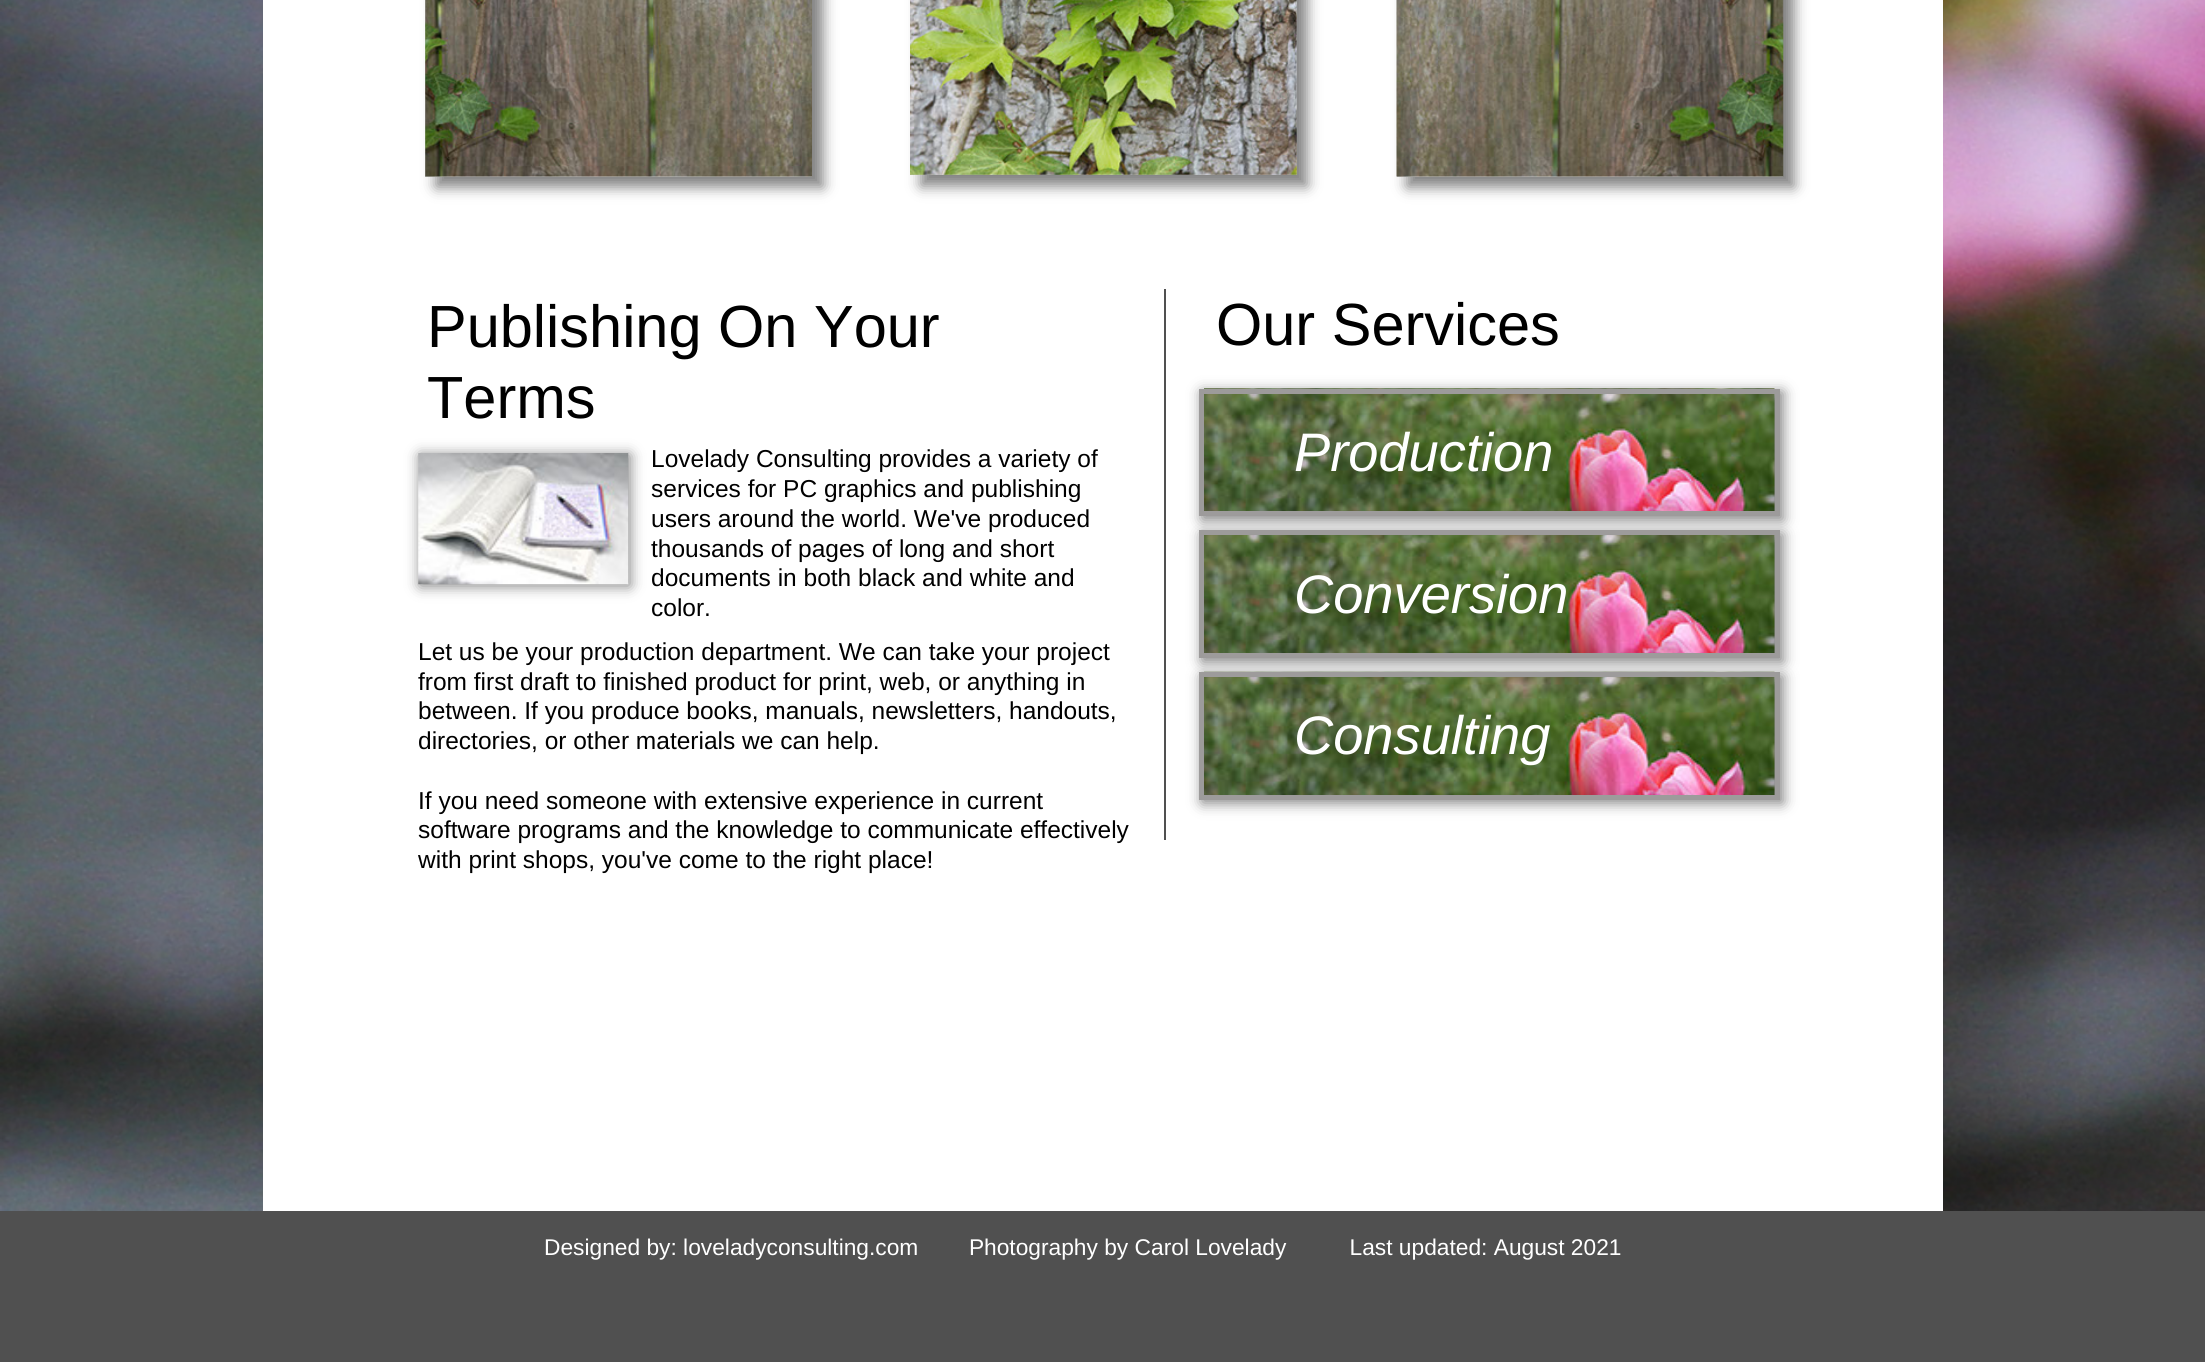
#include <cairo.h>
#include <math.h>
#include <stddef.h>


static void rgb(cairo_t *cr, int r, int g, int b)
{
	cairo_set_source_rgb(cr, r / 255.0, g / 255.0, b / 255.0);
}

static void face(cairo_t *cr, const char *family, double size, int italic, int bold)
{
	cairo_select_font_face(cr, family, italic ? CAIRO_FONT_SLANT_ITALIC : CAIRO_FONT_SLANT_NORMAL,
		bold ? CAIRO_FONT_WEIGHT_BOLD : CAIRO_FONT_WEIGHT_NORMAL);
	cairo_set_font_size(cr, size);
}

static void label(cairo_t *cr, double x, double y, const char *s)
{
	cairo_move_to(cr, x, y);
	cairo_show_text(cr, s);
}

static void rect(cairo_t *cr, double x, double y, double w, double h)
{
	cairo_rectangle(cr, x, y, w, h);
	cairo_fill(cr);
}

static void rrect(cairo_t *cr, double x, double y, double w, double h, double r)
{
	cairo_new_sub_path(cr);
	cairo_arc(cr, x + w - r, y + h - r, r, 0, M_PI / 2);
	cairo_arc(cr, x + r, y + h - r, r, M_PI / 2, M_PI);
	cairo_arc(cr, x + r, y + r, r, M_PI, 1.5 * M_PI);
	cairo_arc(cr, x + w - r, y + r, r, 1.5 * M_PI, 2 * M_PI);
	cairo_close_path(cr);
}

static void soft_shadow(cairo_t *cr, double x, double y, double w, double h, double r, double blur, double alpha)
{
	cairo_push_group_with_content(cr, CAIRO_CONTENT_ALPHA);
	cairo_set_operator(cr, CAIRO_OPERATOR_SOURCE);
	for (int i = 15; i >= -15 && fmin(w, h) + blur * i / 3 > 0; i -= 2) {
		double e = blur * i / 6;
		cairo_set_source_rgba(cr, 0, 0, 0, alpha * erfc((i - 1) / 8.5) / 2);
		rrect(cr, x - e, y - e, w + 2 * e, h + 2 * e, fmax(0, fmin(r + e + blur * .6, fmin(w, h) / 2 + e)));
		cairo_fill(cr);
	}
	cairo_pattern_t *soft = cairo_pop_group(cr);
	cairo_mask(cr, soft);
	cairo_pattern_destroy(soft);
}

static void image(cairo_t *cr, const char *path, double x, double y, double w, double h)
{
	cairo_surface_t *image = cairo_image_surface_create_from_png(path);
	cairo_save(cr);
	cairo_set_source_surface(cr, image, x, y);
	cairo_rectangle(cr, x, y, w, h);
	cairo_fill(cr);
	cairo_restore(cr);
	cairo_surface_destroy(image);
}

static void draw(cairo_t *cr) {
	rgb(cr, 255, 255, 255);
	cairo_paint(cr);
	image(cr, "image0.png", 0, 0, 2205, 1211);
	rgb(cr, 255, 255, 255);
	rect(cr, 263, 0, 1680, 1211);
	rgb(cr, 0, 0, 0);
	soft_shadow(cr, 436, -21, 387, 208, 0, 7, 0.5);
	rgb(cr, 196, 196, 196);
	rect(cr, 425, 0, 387, 177);
	image(cr, "image1.png", 425, 0, 387, 177);
	rgb(cr, 0, 0, 0);
	soft_shadow(cr, 921, -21, 386, 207, 0, 7, 0.5);
	rgb(cr, 196, 196, 196);
	rect(cr, 910, 0, 387, 175);
	image(cr, "image2.png", 910, 0, 387, 175);
	rgb(cr, 0, 0, 0);
	soft_shadow(cr, 1407, -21, 387, 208, 0, 7, 0.5);
	rgb(cr, 196, 196, 196);
	rect(cr, 1397, 176, 386, 1);
	image(cr, "image3.png", 1396, 0, 388, 177);
	face(cr, "Liberation Sans", 59.5, 0, 0);
	rgb(cr, 0, 0, 0);
	label(cr, 427, 347, "Publishing On Your");
	label(cr, 427, 418, "Terms");
	rgb(cr, 0, 0, 0);
	soft_shadow(cr, 420, 455, 210, 131, 0, 7, 0.5);
	image(cr, "image4.png", 418, 453, 211, 132);
	face(cr, "Liberation Sans", 24.5, 0, 0);
	rgb(cr, 0, 0, 0);
	label(cr, 651, 467, "Lovelady Consulting provides a variety of");
	label(cr, 651, 497, "services for PC graphics and publishing");
	label(cr, 651, 527, "users around the world. We've produced");
	label(cr, 651, 557, "thousands of pages of long and short");
	label(cr, 651, 586, "documents in both black and white and");
	label(cr, 651, 616, "color.");
	label(cr, 418, 660, "Let us be your production department. We can take your project");
	label(cr, 418, 690, "from first draft to finished product for print, web, or anything in");
	label(cr, 418, 719, "between. If you produce books, manuals, newsletters, handouts,");
	label(cr, 418, 749, "directories, or other materials we can help.");
	label(cr, 418, 809, "If you need someone with extensive experience in current");
	label(cr, 418, 838, "software programs and the knowledge to communicate effectively");
	label(cr, 418, 868, "with print shops, you've come to the right place!");
	rgb(cr, 80, 80, 80);
	rect(cr, 1164, 289, 2, 551);
	face(cr, "Liberation Sans", 59.5, 0, 0);
	rgb(cr, 0, 0, 0);
	label(cr, 1216, 345, "Our Services");
	rgb(cr, 0, 0, 0);
	soft_shadow(cr, 1202, 392, 581, 128, 0, 7, 0.5);
	image(cr, "image5.png", 1204, 388, 571, 123);
	cairo_rectangle(cr, 1201.5, 391.5, 576, 122);
	rgb(cr, 157, 155, 155);
	cairo_set_line_width(cr, 5);
	cairo_stroke(cr);
	face(cr, "Liberation Sans", 54.25, 1, 0);
	rgb(cr, 255, 255, 255);
	label(cr, 1294, 471, "Production");
	rgb(cr, 0, 0, 0);
	soft_shadow(cr, 1202, 534, 581, 128, 0, 7, 0.5);
	image(cr, "image6.png", 1204, 535, 571, 118);
	cairo_rectangle(cr, 1201.5, 532.5, 576, 123);
	rgb(cr, 157, 155, 155);
	cairo_stroke(cr);
	rgb(cr, 255, 255, 255);
	label(cr, 1294, 613, "Conversion");
	rgb(cr, 0, 0, 0);
	soft_shadow(cr, 1202, 676, 581, 127, 0, 7, 0.5);
	image(cr, "image7.png", 1204, 671, 571, 124);
	cairo_rectangle(cr, 1201.5, 674.5, 576, 123);
	rgb(cr, 157, 155, 155);
	cairo_stroke(cr);
	rgb(cr, 255, 255, 255);
	label(cr, 1294, 754, "Consulting");
	rgb(cr, 80, 80, 80);
	rect(cr, 0, 1211, 2205, 151);
	face(cr, "Liberation Sans", 22.75, 0, 0);
	rgb(cr, 255, 255, 255);
	label(cr, 544, 1255, "Designed by: loveladyconsulting.com        Photography by Carol Lovelady          Last updated: August 2021");
}

int main(void) {
	cairo_surface_t *surface = cairo_image_surface_create(CAIRO_FORMAT_RGB24, 2205, 1362);
	cairo_t *cr = cairo_create(surface);
	cairo_font_options_t *options = cairo_font_options_create();
	cairo_font_options_set_hint_metrics(options, CAIRO_HINT_METRICS_OFF);
	cairo_font_options_set_hint_style(options, CAIRO_HINT_STYLE_NONE);
	cairo_set_font_options(cr, options);
	cairo_set_miter_limit(cr, 4);
	draw(cr);
	cairo_surface_write_to_png(surface, "render.png");
	cairo_font_options_destroy(options);
	cairo_destroy(cr);
	cairo_surface_destroy(surface);
	return 0;
}
